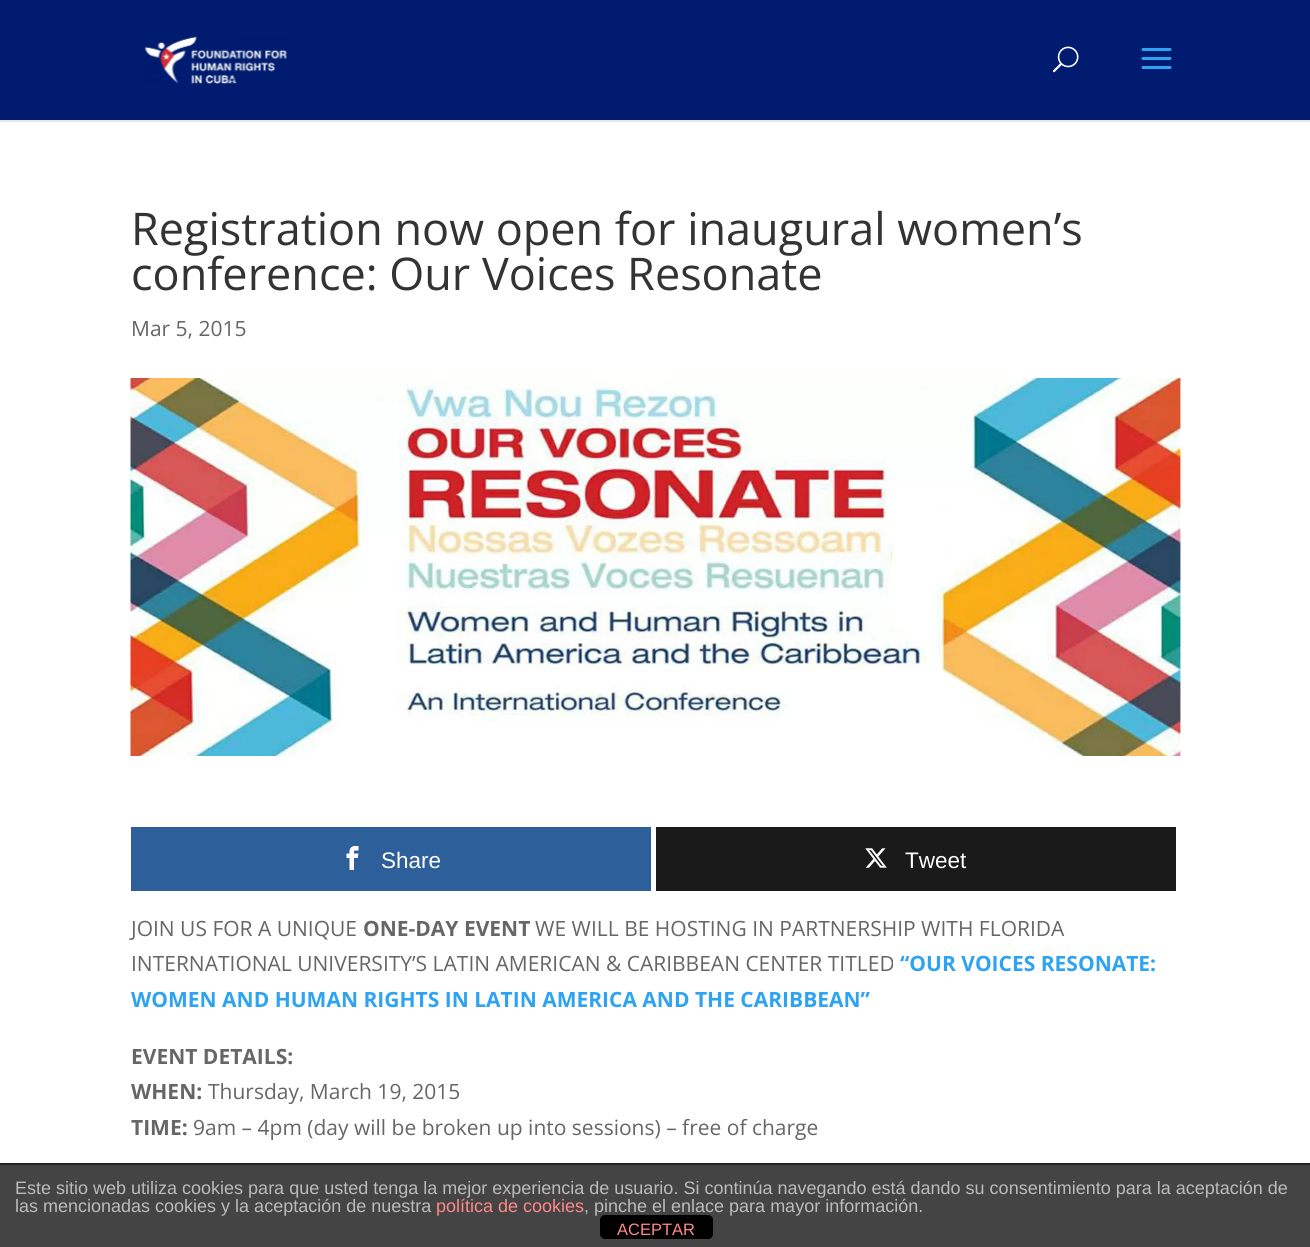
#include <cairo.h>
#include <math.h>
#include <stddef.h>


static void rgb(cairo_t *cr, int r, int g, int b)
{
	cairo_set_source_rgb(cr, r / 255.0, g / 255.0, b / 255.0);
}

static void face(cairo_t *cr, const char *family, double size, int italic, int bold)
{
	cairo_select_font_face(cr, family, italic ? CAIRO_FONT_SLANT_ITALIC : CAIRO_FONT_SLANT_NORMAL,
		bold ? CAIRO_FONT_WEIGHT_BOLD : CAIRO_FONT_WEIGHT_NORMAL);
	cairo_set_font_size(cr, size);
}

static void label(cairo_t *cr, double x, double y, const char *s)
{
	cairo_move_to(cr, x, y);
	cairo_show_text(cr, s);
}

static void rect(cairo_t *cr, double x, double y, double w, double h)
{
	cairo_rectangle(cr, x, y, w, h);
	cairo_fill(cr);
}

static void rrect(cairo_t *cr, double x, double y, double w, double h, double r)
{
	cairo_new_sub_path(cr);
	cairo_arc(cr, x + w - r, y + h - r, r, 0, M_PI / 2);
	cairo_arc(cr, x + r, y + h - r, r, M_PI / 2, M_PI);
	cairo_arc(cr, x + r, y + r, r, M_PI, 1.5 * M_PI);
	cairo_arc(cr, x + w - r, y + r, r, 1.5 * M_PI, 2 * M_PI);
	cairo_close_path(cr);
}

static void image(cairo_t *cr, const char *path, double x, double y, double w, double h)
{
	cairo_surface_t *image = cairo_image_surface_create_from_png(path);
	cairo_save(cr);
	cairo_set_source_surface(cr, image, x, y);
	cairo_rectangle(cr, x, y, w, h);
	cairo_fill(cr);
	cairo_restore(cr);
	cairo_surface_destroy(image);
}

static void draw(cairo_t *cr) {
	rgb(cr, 255, 255, 255);
	cairo_paint(cr);
	rgb(cr, 230, 230, 230);
	rect(cr, 0, 120, 1310, 2);
	rgb(cr, 0, 27, 112);
	rect(cr, 0, 0, 1310, 120);
	image(cr, "image0.png", 144, 36, 143, 48);
	image(cr, "image1.png", 1052, 46, 27, 27);
	image(cr, "image2.png", 1141, 48, 31, 21);
	face(cr, "Open Sans", 45, 0, 0);
	rgb(cr, 51, 51, 51);
	label(cr, 131, 245, "Registration now open for inaugural women’s");
	label(cr, 131, 290, "conference: Our Voices Resonate");
	face(cr, "Open Sans", 21, 0, 0);
	rgb(cr, 102, 102, 102);
	label(cr, 131, 336, "Mar 5, 2015");
	image(cr, "image3.png", 130, 378, 1051, 378);
	rgb(cr, 45, 95, 154);
	rect(cr, 131, 827, 520, 64);
	image(cr, "image4.png", 346, 846, 13, 24);
	face(cr, "Liberation Sans", 22.5, 0, 0);
	rgb(cr, 255, 255, 255);
	label(cr, 381, 868, "Share");
	rgb(cr, 26, 26, 26);
	rect(cr, 656, 827, 520, 64);
	image(cr, "image5.png", 865, 848, 22, 20);
	rgb(cr, 255, 255, 255);
	label(cr, 905, 868, "Tweet");
	face(cr, "Open Sans", 21, 0, 0);
	rgb(cr, 102, 102, 102);
	label(cr, 131, 936, "JOIN US FOR A UNIQUE");
	face(cr, "Open Sans", 21, 0, 1);
	label(cr, 363, 936, "ONE-DAY EVENT");
	face(cr, "Open Sans", 21, 0, 0);
	label(cr, 535, 936, "WE WILL BE HOSTING IN PARTNERSHIP WITH FLORIDA");
	label(cr, 131, 971, "INTERNATIONAL UNIVERSITY’S LATIN AMERICAN & CARIBBEAN CENTER TITLED");
	face(cr, "Open Sans", 21, 0, 1);
	rgb(cr, 46, 163, 242);
	label(cr, 900, 971, "“OUR VOICES RESONATE:");
	label(cr, 131, 1007, "WOMEN AND HUMAN RIGHTS IN LATIN AMERICA AND THE CARIBBEAN”");
	rgb(cr, 102, 102, 102);
	label(cr, 131, 1064, "EVENT DETAILS:");
	label(cr, 131, 1099, "WHEN:");
	face(cr, "Open Sans", 21, 0, 0);
	label(cr, 208, 1099, "Thursday, March 19, 2015");
	face(cr, "Open Sans", 21, 0, 1);
	label(cr, 131, 1135, "TIME:");
	face(cr, "Open Sans", 21, 0, 0);
	label(cr, 193, 1135, "9am – 4pm (day will be broken up into sessions) – free of charge");
	rgb(cr, 68, 68, 68);
	rect(cr, 0, 1165, 1310, 82);
	rgb(cr, 34, 34, 34);
	rect(cr, 0, 1163, 1310, 2);
	face(cr, "Liberation Sans", 18, 0, 0);
	rgb(cr, 187, 187, 187);
	label(cr, 15, 1194, "Este sitio web utiliza cookies para que usted tenga la mejor experiencia de usuario. Si continúa navegando está dando su consentimiento para la aceptación de");
	label(cr, 15, 1212, "las mencionadas cookies y la aceptación de nuestra");
	rgb(cr, 255, 136, 136);
	label(cr, 436, 1212, "política de cookies");
	rgb(cr, 0, 0, 0);
	rrect(cr, 600, 1215, 113, 24, 5);
	cairo_fill(cr);
	rgb(cr, 187, 187, 187);
	label(cr, 584, 1212, ", pinche el enlace para mayor información.");
	face(cr, "Liberation Sans", 16.5, 0, 0);
	rgb(cr, 255, 136, 136);
	label(cr, 617, 1235, "ACEPTAR");
}

int main(void) {
	cairo_surface_t *surface = cairo_image_surface_create(CAIRO_FORMAT_RGB24, 1310, 1247);
	cairo_t *cr = cairo_create(surface);
	cairo_font_options_t *options = cairo_font_options_create();
	cairo_font_options_set_hint_metrics(options, CAIRO_HINT_METRICS_OFF);
	cairo_font_options_set_hint_style(options, CAIRO_HINT_STYLE_NONE);
	cairo_set_font_options(cr, options);
	cairo_set_miter_limit(cr, 4);
	draw(cr);
	cairo_surface_write_to_png(surface, "render.png");
	cairo_font_options_destroy(options);
	cairo_destroy(cr);
	cairo_surface_destroy(surface);
	return 0;
}
